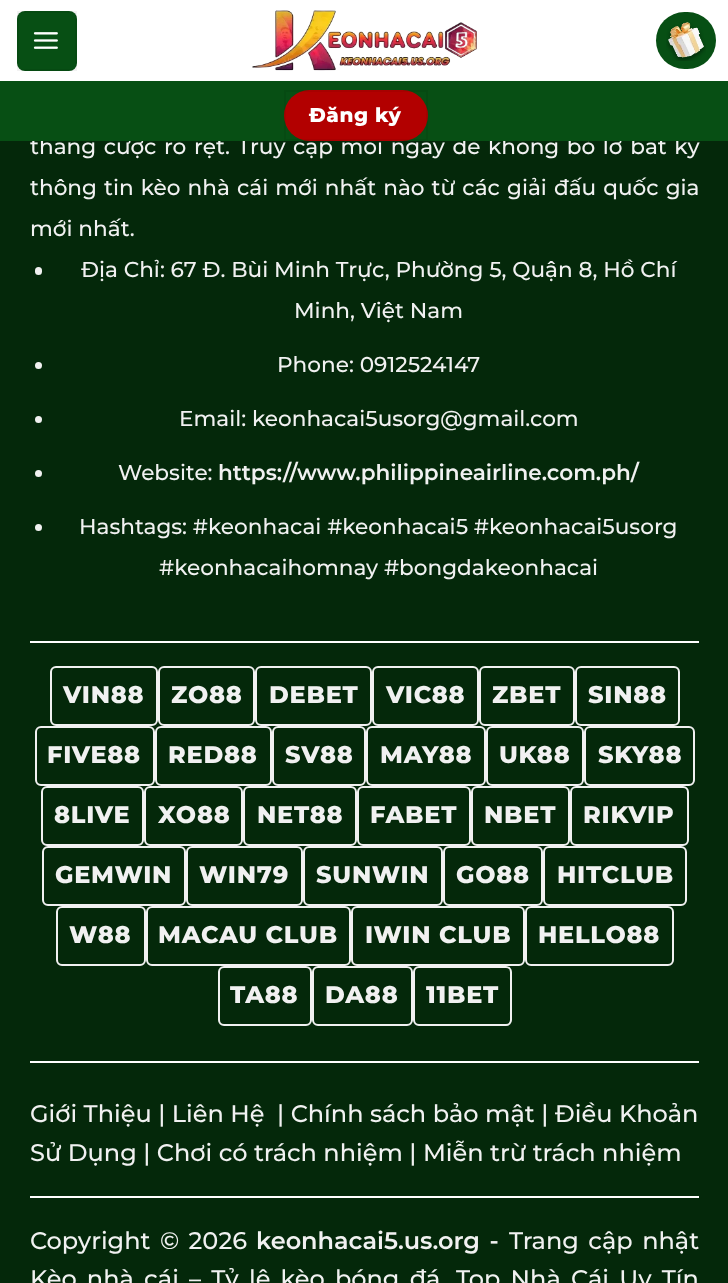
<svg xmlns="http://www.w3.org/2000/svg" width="728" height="1283">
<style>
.a{font:500 21.6px Montserrat;fill:#f1f1f1}
.b{font:800 20px Montserrat;letter-spacing:0.5px;fill:#fff}
.c{font:600 21.6px Montserrat;fill:#f1f1f1}
.d{font:800 24px Montserrat;letter-spacing:0.75px;fill:#f1f1f1}
.e{font:500 24px Montserrat;fill:#f1f1f1}
.f{font:600 24px Montserrat;fill:#f1f1f1}
</style>
<rect width="100%" height="100%" fill="#04280a"/>
<path fill="#fff" d="M0 0h728v81H0z"/>
<rect fill="#074f14" x="17" y="11" width="60" height="60" rx="8"/>
<path fill="none" stroke="#0000000d" stroke-width="2" d="M18 12h58v58H18z"/>
<image href="1.png" x="33" y="32" width="25" height="17"/>
<image href="2.png" x="252" y="10" width="225" height="61"/>
<rect fill="#074f14" x="656" y="12" width="60" height="57" rx="28.5"/>
<image href="3.png" x="666" y="22" width="40" height="39"/>
<rect fill="#f1f1f1" x="35" y="267" width="7" height="8" rx="3.5"/>
<circle fill="#f1f1f1" cx="38.5" cy="365.5" r="3.5"/>
<circle fill="#f1f1f1" cx="38.5" cy="419.5" r="3.5"/>
<circle fill="#f1f1f1" cx="38.5" cy="473.5" r="3.5"/>
<circle fill="#f1f1f1" cx="38.5" cy="527.5" r="3.5"/>
<path fill="#fff" d="M30 641h669v2H30z"/>
<rect fill="none" stroke="#f1f1f1" stroke-width="2" x="51" y="667" width="106" height="58" rx="5"/>
<rect fill="none" stroke="#f1f1f1" stroke-width="2" x="159" y="667" width="95" height="58" rx="5"/>
<rect fill="none" stroke="#f1f1f1" stroke-width="2" x="256" y="667" width="115" height="58" rx="5"/>
<rect fill="none" stroke="#f1f1f1" stroke-width="2" x="373" y="667" width="105" height="58" rx="5"/>
<rect fill="none" stroke="#f1f1f1" stroke-width="2" x="480" y="667" width="94" height="58" rx="5"/>
<rect fill="none" stroke="#f1f1f1" stroke-width="2" x="576" y="667" width="103" height="58" rx="5"/>
<rect fill="none" stroke="#f1f1f1" stroke-width="2" x="36" y="727" width="118" height="58" rx="5"/>
<rect fill="none" stroke="#f1f1f1" stroke-width="2" x="156" y="727" width="115" height="58" rx="5"/>
<rect fill="none" stroke="#f1f1f1" stroke-width="2" x="273" y="727" width="92" height="58" rx="5"/>
<rect fill="none" stroke="#f1f1f1" stroke-width="2" x="367" y="727" width="118" height="58" rx="5"/>
<rect fill="none" stroke="#f1f1f1" stroke-width="2" x="487" y="727" width="96" height="58" rx="5"/>
<rect fill="none" stroke="#f1f1f1" stroke-width="2" x="585" y="727" width="109" height="58" rx="5"/>
<rect fill="none" stroke="#f1f1f1" stroke-width="2" x="42" y="787" width="101" height="58" rx="5"/>
<rect fill="none" stroke="#f1f1f1" stroke-width="2" x="145" y="787" width="97" height="58" rx="5"/>
<rect fill="none" stroke="#f1f1f1" stroke-width="2" x="244" y="787" width="112" height="58" rx="5"/>
<rect fill="none" stroke="#f1f1f1" stroke-width="2" x="358" y="787" width="112" height="58" rx="5"/>
<rect fill="none" stroke="#f1f1f1" stroke-width="2" x="472" y="787" width="97" height="58" rx="5"/>
<rect fill="none" stroke="#f1f1f1" stroke-width="2" x="571" y="787" width="117" height="58" rx="5"/>
<rect fill="none" stroke="#f1f1f1" stroke-width="2" x="43" y="847" width="142" height="58" rx="5"/>
<rect fill="none" stroke="#f1f1f1" stroke-width="2" x="187" y="847" width="115" height="58" rx="5"/>
<rect fill="none" stroke="#f1f1f1" stroke-width="2" x="304" y="847" width="138" height="58" rx="5"/>
<rect fill="none" stroke="#f1f1f1" stroke-width="2" x="444" y="847" width="98" height="58" rx="5"/>
<rect fill="none" stroke="#f1f1f1" stroke-width="2" x="544" y="847" width="142" height="58" rx="5"/>
<rect fill="none" stroke="#f1f1f1" stroke-width="2" x="57" y="907" width="88" height="58" rx="5"/>
<rect fill="none" stroke="#f1f1f1" stroke-width="2" x="147" y="907" width="203" height="58" rx="5"/>
<rect fill="none" stroke="#f1f1f1" stroke-width="2" x="352" y="907" width="172" height="58" rx="5"/>
<rect fill="none" stroke="#f1f1f1" stroke-width="2" x="526" y="907" width="147" height="58" rx="5"/>
<rect fill="none" stroke="#f1f1f1" stroke-width="2" x="219" y="967" width="92" height="58" rx="5"/>
<rect fill="none" stroke="#f1f1f1" stroke-width="2" x="313" y="967" width="99" height="58" rx="5"/>
<rect fill="none" stroke="#f1f1f1" stroke-width="2" x="414" y="967" width="97" height="58" rx="5"/>
<path fill="#fff" d="M30 1061h669v2H30z"/>
<path fill="#fff" d="M30 1196h669v2H30z"/>
<text class="a" x="30" y="154" word-spacing="1.75">thắng cược rõ rệt. Truy cập mỗi ngày để không bỏ lỡ bất kỳ</text>
<path fill="#074f14" d="M0 81h728v60H0z"/>
<rect fill="#b20000" x="284" y="90" width="144" height="51" rx="25.5"/>
<path fill="none" stroke="#0000000d" stroke-width="2" d="M285 91h142v49H285z"/>
<text class="b" x="309" y="122">Đăng ký</text>
<text class="a" x="30" y="195" word-spacing="1.25">thông tin kèo nhà cái mới nhất nào từ các giải đấu quốc gia</text>
<text class="a" x="30" y="236">mới nhất.</text>
<text class="a" x="81" y="277">Địa Chỉ: 67 Đ. Bùi Minh Trực, Phường 5, Quận 8, Hồ Chí</text>
<text class="a" x="294" y="318">Minh, Việt Nam</text>
<text class="a" x="277" y="372">Phone: 0912524147</text>
<text class="a" x="179" y="426">Email: keonhacai5usorg@gmail.com</text>
<text class="a" x="118" y="480">Website:</text>
<text class="c" x="218" y="480">https://www.philippineairline.com.ph/</text>
<text class="a" x="79" y="534">Hashtags: #keonhacai #keonhacai5 #keonhacai5usorg</text>
<text class="a" x="159" y="575">#keonhacaihomnay #bongdakeonhacai</text>
<text class="d" x="63" y="703">VIN88</text>
<text class="d" x="171" y="703">ZO88</text>
<text class="d" x="269" y="703">DEBET</text>
<text class="d" x="386" y="703">VIC88</text>
<text class="d" x="492" y="703">ZBET</text>
<text class="d" x="588" y="703">SIN88</text>
<text class="d" x="47" y="763">FIVE88</text>
<text class="d" x="168" y="763">RED88</text>
<text class="d" x="285" y="763">SV88</text>
<text class="d" x="380" y="763">MAY88</text>
<text class="d" x="499" y="763">UK88</text>
<text class="d" x="598" y="763">SKY88</text>
<text class="d" x="54" y="823">8LIVE</text>
<text class="d" x="158" y="823">XO88</text>
<text class="d" x="257" y="823">NET88</text>
<text class="d" x="370" y="823">FABET</text>
<text class="d" x="484" y="823">NBET</text>
<text class="d" x="583" y="823">RIKVIP</text>
<text class="d" x="55" y="883">GEMWIN</text>
<text class="d" x="199" y="883">WIN79</text>
<text class="d" x="316" y="883">SUNWIN</text>
<text class="d" x="456" y="883">GO88</text>
<text class="d" x="557" y="883">HITCLUB</text>
<text class="d" x="69" y="943">W88</text>
<text class="d" x="158" y="943">MACAU CLUB</text>
<text class="d" x="365" y="943">IWIN CLUB</text>
<text class="d" x="538" y="943">HELLO88</text>
<text class="d" x="230" y="1003">TA88</text>
<text class="d" x="325" y="1003">DA88</text>
<text class="d" x="426" y="1003">11BET</text>
<text class="e" x="30" y="1122">Giới Thiệu | Liên Hệ</text>
<text class="e" x="277" y="1122">| Chính sách bảo mật | Điều Khoản</text>
<text class="e" x="30" y="1161">Sử Dụng | Chơi có trách nhiệm | Miễn trừ trách nhiệm</text>
<text class="e" x="30" y="1249" word-spacing="3">Copyright © 2026</text>
<text class="f" x="256" y="1249" word-spacing="3">keonhacai5.us.org -</text>
<text class="e" x="509" y="1249" word-spacing="3">Trang cập nhật</text>
<text class="e" x="30" y="1287" word-spacing="3.75">Kèo nhà cái – Tỷ lệ kèo bóng đá, Top Nhà Cái Uy Tín</text>
</svg>
